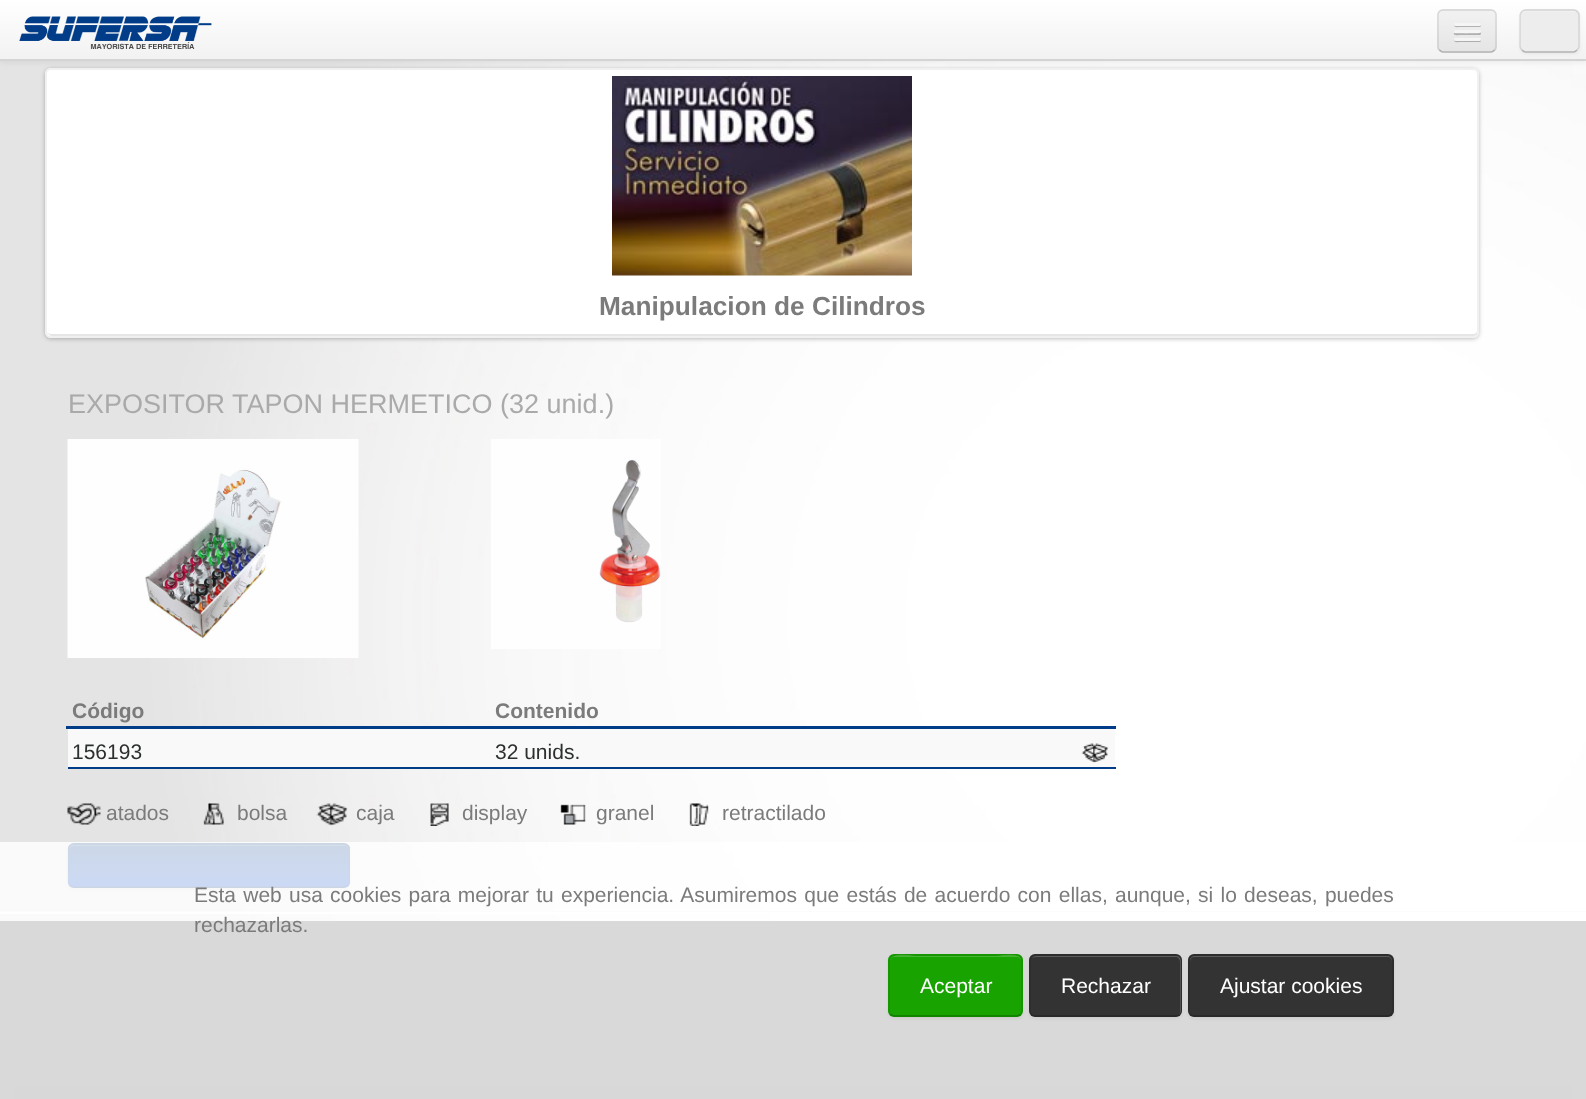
<svg xmlns="http://www.w3.org/2000/svg" width="1586" height="1099">
<style>
.a{font:bold 26.25px Liberation Sans;fill:#7b7b7b}
.b{font:27px Liberation Sans;fill:#aaa}
.c{font:bold 21px Liberation Sans;fill:#7b7b7b}
.d{font:21px Liberation Sans;fill:#2c2f2f}
.e{font:21px Liberation Sans;fill:#7b7b7b}
.f{font:21px Liberation Sans;fill:#fff}
</style>
<defs>
<linearGradient id="g1" gradientUnits="userSpaceOnUse" x1="794" y1="0" x2="794" y2="59"><stop offset="0" stop-color="#fff"/><stop offset="1" stop-color="#f2f2f2"/></linearGradient>
<clipPath id="clip1"><rect x="1437" y="9" width="60" height="44" rx="6"/></clipPath>
<linearGradient id="g2" gradientUnits="userSpaceOnUse" x1="1467" y1="10" x2="1467" y2="51"><stop offset="0" stop-color="#f2f2f2"/><stop offset="1" stop-color="#e5e5e5"/></linearGradient>
<clipPath id="clip2"><rect x="68" y="843" width="282" height="45" rx="6"/></clipPath>
<linearGradient id="g3" gradientUnits="userSpaceOnUse" x1="209" y1="845" x2="209" y2="887"><stop offset="0" stop-color="#003c88"/><stop offset="1" stop-color="#04c"/></linearGradient>
</defs>
<rect width="100%" height="100%" fill="#fff"/>
<image href="1.png" x="0" y="61" width="1586" height="860"/>
<rect fill="#00000040" filter="blur(2px)" x="45" y="69" width="1434" height="270" rx="6"/>
<rect fill="#fff" x="45" y="68" width="1434" height="270" rx="6"/>
<path fill="#e6e6e6" d="M47 332c1 2 3 4 5 4h1421c3 0 5-2 5-5v-1c0 2-3 4-5 4h-1422c-1 0-3-1-4-2z"/>
<rect fill="none" stroke="#f0f0f0" stroke-width="2" x="46" y="69" width="1432" height="268" rx="5"/>
<path fill="#00000012" filter="blur(3px)" d="M0 2h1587v60H0z"/>
<path fill="url(#g1)" d="M0 0h1586v59H0z"/>
<path fill="#d4d4d4" d="M0 59h1586v2H0z"/>
<rect fill="#ededed" x="1437" y="9" width="60" height="44" rx="6"/>
<g clip-path="url(#clip1)">
<path fill="url(#g2)" d="M1437 11h60v40H1437z"/>
</g>
<path fill="none" stroke="#00000040" stroke-width="1.5" d="M1494.5 50c-1 1-2 2-3.5 2h-48c-1.5 0-2.5-1-3.5-2"/>
<path fill="none" stroke="#0000001a" stroke-width="1.5" d="M1439.5 50c-1-1-1.5-2-1.5-3.5v-31.5c0-1.5 .5-2.5 1.5-3.5c1-1 2-1.5 3.5-1.5h48c1.5 0 2.5 .5 3.5 1.5c1 1 1.5 2 1.5 3.5v31.5c0 1.5-.5 2.5-1.5 3.5"/>
<path fill="#b2b2b2" d="M1454 25c-.5 3 5 2 5.5 2h20c1.5 0 2-2 1-2.5l-1 1c-1.5 .5-25 0-25.5-.5z"/>
<rect fill="#f5f5f5" x="1454" y="23" width="27" height="3" rx="1.5"/>
<path fill="#b0b0b0" d="M1454 33c-1.5 3 5.5 2 5.5 2h20.5c1-.5 1.5-2 .5-3l-1.5 1c-2 .5-24 .5-25 0z"/>
<rect fill="#f5f5f5" x="1454" y="30" width="27" height="3" rx="1.5"/>
<path fill="#aeaeae" d="M1454 40c-.5 3 5 2 5.5 2h20c1.5 0 2-2 1-2.5l-1 1c-1.5 .5-25 0-25.5-.5z"/>
<rect fill="#f5f5f5" x="1454" y="38" width="27" height="3" rx="1.5"/>
<rect fill="#0000000d" filter="blur(1.5px)" x="1520" y="11" width="60" height="43" rx="6"/>
<rect fill="#ededed" x="1520" y="9" width="60" height="44" rx="6"/>
<path fill="#f1f1f1" d="M1526 12h48c2 0 4 2 4 4c0-3-2-5-5-5h-47c-3 0-5 2-5 5c0-2 2-4 5-4z"/>
<path fill="none" stroke="#b2b2b2" stroke-width="1.5" d="M1577 50c-1 1-2 2-3.5 2h-48c-1.5 0-2.5-1-3.5-2"/>
<path fill="none" stroke="#0000001a" stroke-width="1.5" d="M1522 50c-1-1-2-2-2-3.5v-31.5c0-1.5 1-2.5 2-3.5c1-1 2-1.5 3.5-1.5h48c1.5 0 2.5 .5 3.5 1.5c1 1 2 2 2 3.5v31.5c0 1.5-1 2.5-2 3.5"/>
<image href="2.png" x="19" y="16" width="193" height="34"/>
<image href="3.png" x="612" y="76" width="300" height="200"/>
<image href="4.png" x="67" y="439" width="292" height="219"/>
<image href="5.png" x="491" y="439" width="170" height="210"/>
<path fill="#003c88" d="M66 726h1050v3H66z"/>
<path fill="#003c88" d="M68 767h1048v2H68z"/>
<path fill="#f9f9f9" d="M68 729h1047v38H68z"/>
<image href="6.png" x="1081" y="743" width="28" height="20"/>
<image href="7.png" x="67" y="803" width="34" height="22"/>
<image href="8.png" x="203" y="803" width="21" height="22"/>
<image href="9.png" x="316" y="803" width="32" height="23"/>
<image href="10.png" x="430" y="803" width="19" height="23"/>
<image href="11.png" x="560" y="804" width="26" height="21"/>
<image href="12.png" x="689" y="803" width="20" height="23"/>
<rect fill="#0000000d" filter="blur(1.5px)" x="68" y="845" width="282" height="45" rx="6"/>
<rect fill="#003c88" x="68" y="843" width="282" height="45" rx="6"/>
<g clip-path="url(#clip2)">
<path fill="url(#g3)" d="M68 845h282v42H68z"/>
</g>
<path fill="#3363a1" d="M74 846h270c2 0 4 2 4 4c0-3-2-5-5-5h-269c-3 0-5 2-5 5c0-2 2-4 5-4z"/>
<path fill="none" stroke="#00000040" stroke-width="1.5" d="M347 885.5l-3 1.5h-270.5c-1.5 0-2.5-.5-3.5-1.5"/>
<path fill="none" stroke="#0000001a" stroke-width="1.5" d="M70 885.5c-1-1-2-2-2-3.5v-33c0-1.5 1-2.5 2-3.5c1-1 2-1.5 3.5-1.5h270c1.5 0 2.5 .5 3.5 1.5c1 1 2 2 2 3.5v33c0 1.5-1 2.5-2 3.5"/>
<path fill="#eee" d="M0 911h1586v1H0z"/>
<path fill="#fff" d="M0 912h829v2H0z"/>
<path fill="#414042" d="M0 921h1586v178H0z"/>
<path fill="#3d3d3d" d="M15 1086h1557v13H15z"/>
<path fill="#ffffffcc" d="M0 842h1586v257H0z"/>
<rect fill="#0000000d" filter="blur(1.5px)" x="888" y="956" width="135" height="63" rx="6"/>
<rect fill="#18a300" x="888" y="954" width="135" height="63" rx="6"/>
<path fill="#46b533" d="M894 957h123c2 0 5 2 5 5c0-11-22-6-25-6h-82c-3 0-25-5-25 6c0-3 2-5 4-5z"/>
<path fill="none" stroke="#00000040" stroke-width="1.5" d="M1020.5 1014.5l-3 1.5h-124l-3-1.5"/>
<path fill="none" stroke="#0000001a" stroke-width="1.5" d="M890.5 1014.5c-1-1-1.5-2-1.5-3.5v-51c0-1.5 .5-2.5 1.5-3.5c1-1 2-1.5 3.5-1.5h123c1.5 0 2.5 .5 3.5 1.5c1 1 1.5 2 1.5 3.5v51c0 1.5-.5 2.5-1.5 3.5"/>
<rect fill="#0000000d" filter="blur(1.5px)" x="1029" y="956" width="153" height="63" rx="6"/>
<rect fill="#333" x="1029" y="954" width="153" height="63" rx="6"/>
<path fill="#5c5c5c" d="M1035 957h141c2 0 4 2 4 5v50l-1 3c1-1 2-3 2-4v-50c0-3-2-5-5-5h-140c-2 0-3 1-4 2z"/>
<path fill="none" stroke="#00000040" stroke-width="1.5" d="M1179.5 1014.5c-1 1-2 1.5-3.5 1.5h-141c-1.5 0-2.5-.5-3.5-1.5"/>
<path fill="none" stroke="#00000026" stroke-width="1.5" d="M1031.5 1014.5c-1-1-1.5-2-1.5-3.5v-51c0-1.5 .5-2.5 1.5-3.5c1-1 2-1.5 3.5-1.5h141c1.5 0 2.5 .5 3.5 1.5c1 1 1.5 2 1.5 3.5v51c0 1.5-.5 2.5-1.5 3.5"/>
<rect fill="#0000000d" filter="blur(1.5px)" x="1188" y="956" width="206" height="63" rx="6"/>
<rect fill="#333" x="1188" y="954" width="206" height="63" rx="6"/>
<path fill="#5c5c5c" d="M1194 957h194c2 0 4 2 4 5v-1c0-3-2-5-5-5h-192c-3 0-5 2-5 5v1c0-3 2-5 4-5z"/>
<path fill="none" stroke="#00000040" stroke-width="1.5" d="M1391 1014.5c-1 1-2 1.5-3.5 1.5h-193.5c-1.5 0-2.5-.5-3.5-1.5"/>
<path fill="none" stroke="#00000026" stroke-width="1.5" d="M1190.5 1014.5c-1-1-1.5-2-1.5-3.5v-51c0-1.5 .5-2.5 1.5-3.5c1-1 2-1.5 3.5-1.5h193.5c1.5 0 2.5 .5 3.5 1.5c1 1 2 2 2 3.5v51c0 1.5-1 2.5-2 3.5"/>
<text class="a" x="599" y="315">Manipulacion de Cilindros</text>
<text class="b" x="68" y="413">EXPOSITOR TAPON HERMETICO (32 unid.)</text>
<text class="c" x="72" y="718">Código</text>
<text class="c" x="495" y="718">Contenido</text>
<text class="d" x="72" y="759">156193</text>
<text class="d" x="495" y="759">32 unids.</text>
<text class="e" x="106" y="820">atados</text>
<text class="e" x="237" y="820">bolsa</text>
<text class="e" x="356" y="820">caja</text>
<text class="e" x="462" y="820">display</text>
<text class="e" x="596" y="820">granel</text>
<text class="e" x="722" y="820">retractilado</text>
<text class="e" x="194" y="902" word-spacing="1.4">Esta web usa cookies para mejorar tu experiencia. Asumiremos que estás de acuerdo con ellas, aunque, si lo deseas, puedes</text>
<text class="e" x="194" y="932">rechazarlas.</text>
<text class="f" x="920" y="993">Aceptar</text>
<text class="f" x="1061" y="993">Rechazar</text>
<text class="f" x="1220" y="993">Ajustar cookies</text>
</svg>
